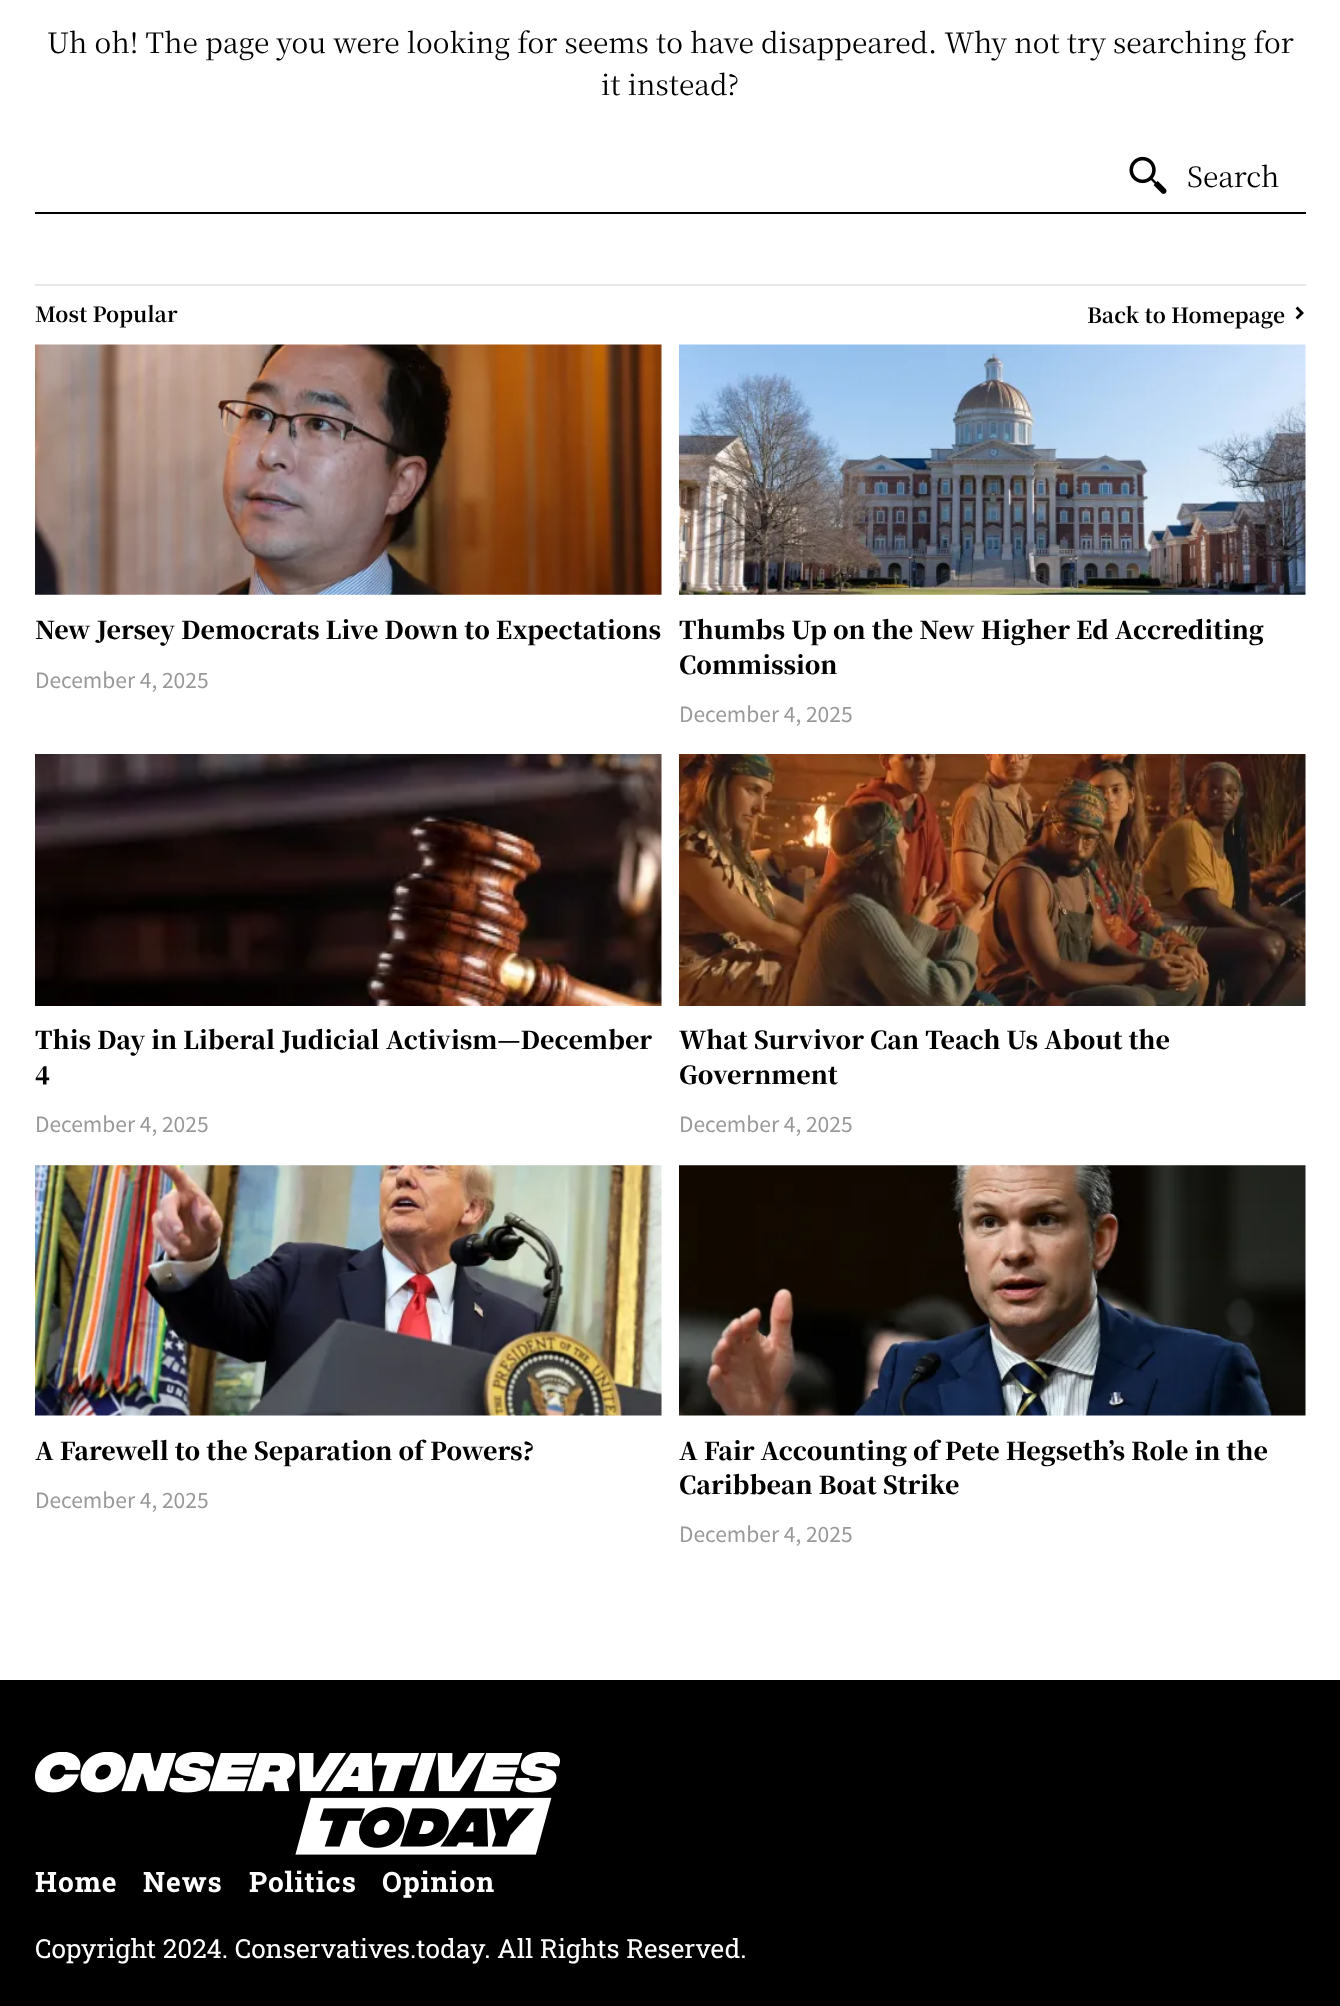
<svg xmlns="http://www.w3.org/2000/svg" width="1340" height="2006">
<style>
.a{font:28px Noto Serif JP;fill:#000}
.b{font:bold 21px Noto Serif JP;fill:#000}
.c{font:900 24.5px Noto Serif JP;fill:#000}
.d{font:100 21px Noto Sans JP;fill:#999}
.e{font:bold 28px Roboto Slab;letter-spacing:1px;fill:#fff}
.f{font:26.25px Roboto Slab;fill:#fff}
</style>
<rect width="100%" height="100%" fill="#fff"/>
<image href="1.png" x="1129" y="156" width="38" height="38"/>
<path fill="#000" d="M35 212h1271v2H35z"/>
<path fill="#e8e8e8" d="M35 284h1271v2H35z"/>
<image href="2.png" x="1295" y="306" width="9" height="14"/>
<image href="3.png" x="35" y="344" width="627" height="251"/>
<image href="4.png" x="679" y="344" width="627" height="251"/>
<image href="5.png" x="35" y="754" width="627" height="252"/>
<image href="6.png" x="679" y="754" width="627" height="252"/>
<image href="7.png" x="35" y="1165" width="627" height="251"/>
<image href="8.png" x="679" y="1165" width="627" height="251"/>
<path fill="#000" d="M0 1680h1340v326H0z"/>
<image href="9.png" x="35" y="1752" width="525" height="103"/>
<text class="a" x="47" y="53">Uh oh! The page you were looking for seems to have disappeared. Why not try searching for</text>
<text class="a" x="601" y="95">it instead?</text>
<text class="a" x="1187" y="187">Search</text>
<text class="b" x="35" y="322">Most Popular</text>
<text class="b" x="1087" y="323">Back to Homepage</text>
<text class="c" x="35" y="639">New Jersey Democrats Live Down to Expectations</text>
<text class="d" x="35" y="688">December 4, 2025</text>
<text class="c" x="679" y="639">Thumbs Up on the New Higher Ed Accrediting</text>
<text class="c" x="679" y="674">Commission</text>
<text class="d" x="679" y="722">December 4, 2025</text>
<text class="c" x="35" y="1049">This Day in Liberal Judicial Activism—December</text>
<text class="c" x="35" y="1084">4</text>
<text class="d" x="35" y="1132">December 4, 2025</text>
<text class="c" x="679" y="1049">What Survivor Can Teach Us About the</text>
<text class="c" x="679" y="1084">Government</text>
<text class="d" x="679" y="1132">December 4, 2025</text>
<text class="c" x="35" y="1460">A Farewell to the Separation of Powers?</text>
<text class="d" x="35" y="1508">December 4, 2025</text>
<text class="c" x="679" y="1460">A Fair Accounting of Pete Hegseth’s Role in the</text>
<text class="c" x="679" y="1494">Caribbean Boat Strike</text>
<text class="d" x="679" y="1542">December 4, 2025</text>
<text class="e" x="35" y="1892">Home</text>
<text class="e" x="143" y="1892">News</text>
<text class="e" x="249" y="1892">Politics</text>
<text class="e" x="382" y="1892">Opinion</text>
<text class="f" x="35" y="1958">Copyright 2024. Conservatives.today. All Rights Reserved.</text>
</svg>
